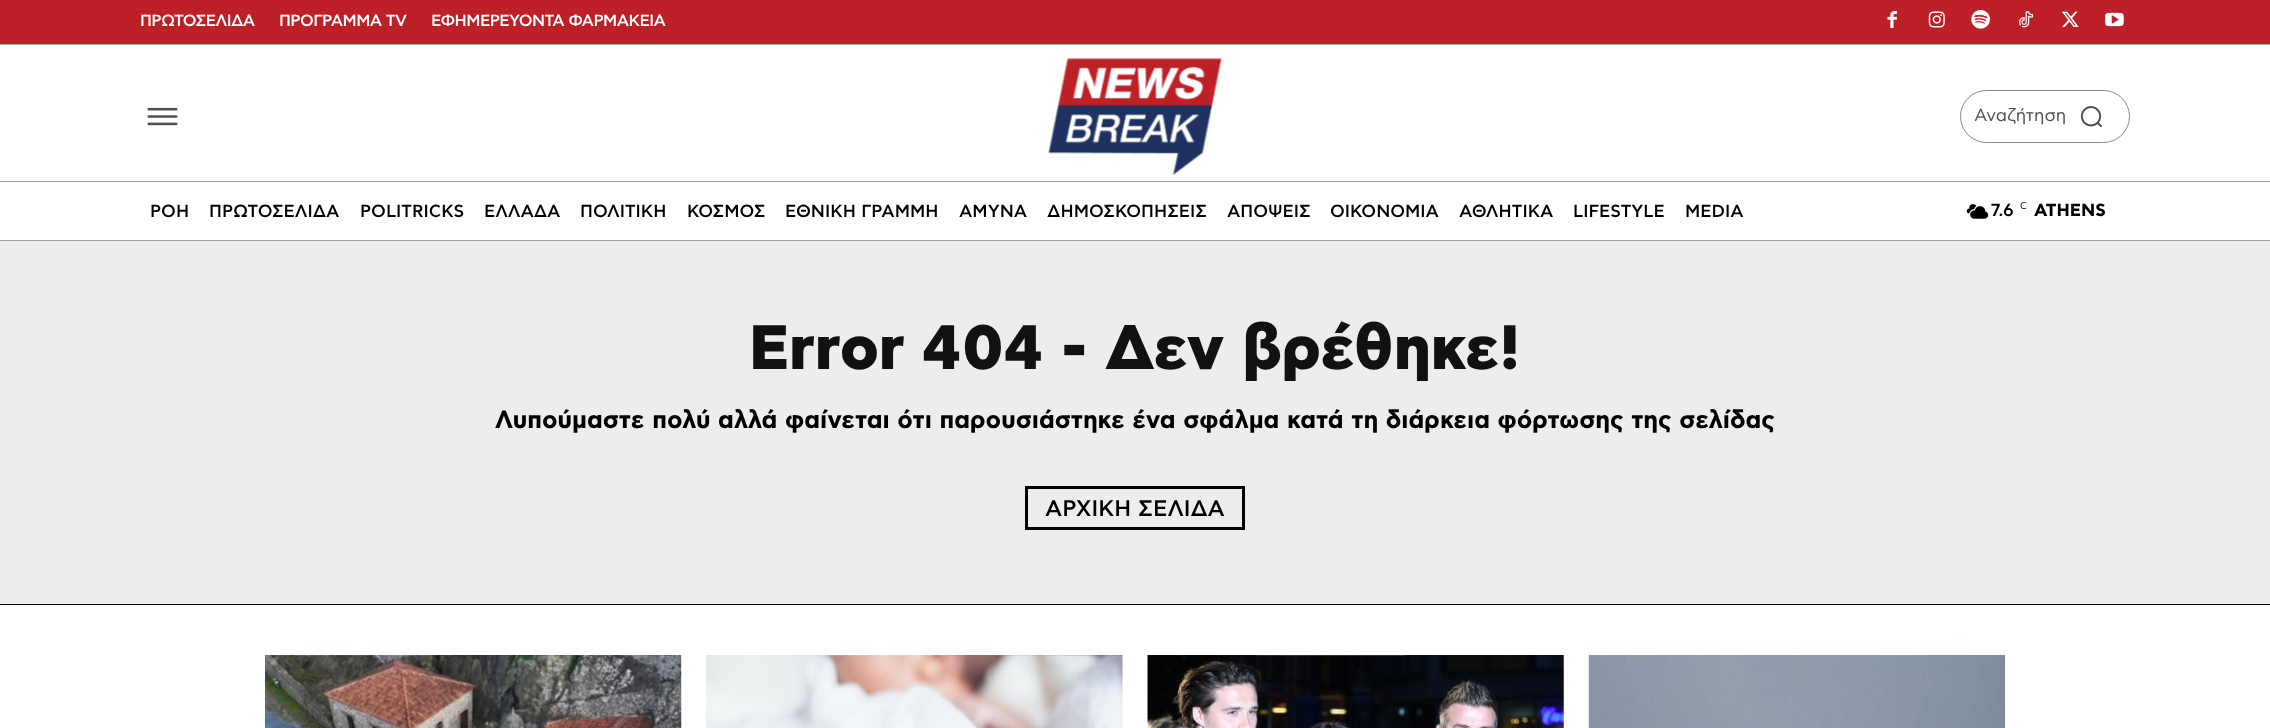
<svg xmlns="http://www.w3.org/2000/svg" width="2270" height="728">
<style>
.a{font:500 16.25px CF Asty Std;letter-spacing:-0.6px;fill:#fff}
.b{font:17.5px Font;fill:#505050}
.c{font:500 17.5px CF Asty Std;fill:#000}
.d{font:10px Font;fill:#000}
.e{font:bold 17.5px Font;fill:#000}
.f{font:800 62.5px CF Asty Std;fill:#111}
.g{font:bold 25px Font;fill:#000}
.h{font:500 22.5px CF Asty Std;fill:#000}
</style>
<rect width="100%" height="100%" fill="#fff"/>
<path fill="#bd2027" d="M0 0h2270v44H0z"/>
<path fill="#afafaf" d="M0 44h2270v1H0z"/>
<image href="1.png" x="1887" y="11" width="10" height="17"/>
<image href="2.png" x="1928" y="11" width="17" height="17"/>
<image href="3.png" x="1971" y="10" width="19" height="19"/>
<image href="4.png" x="2018" y="11" width="16" height="17"/>
<image href="5.png" x="2062" y="11" width="17" height="16"/>
<image href="6.png" x="2105" y="12" width="19" height="15"/>
<image href="7.png" x="147" y="107" width="31" height="19"/>
<image href="8.png" x="1048" y="58" width="174" height="118"/>
<rect fill="none" stroke="#888" x="1960.5" y="90.5" width="169" height="52" rx="26"/>
<image href="9.png" x="2080" y="106" width="22" height="22"/>
<path fill="#a0a0a0" d="M0 181h2270v1H0z"/>
<path fill="#a0a0a0" d="M0 240h2270v1H0z"/>
<image href="10.png" x="1966" y="204" width="23" height="15"/>
<path fill="#ededed" d="M0 241h2270v363H0z"/>
<path fill="#000" d="M0 604h2270v1H0z"/>
<path fill="none" stroke="#000" stroke-width="3" d="M1026.5 487.5h217v41H1026.5z"/>
<image href="11.png" x="265" y="655" width="417" height="73"/>
<image href="12.png" x="706" y="655" width="417" height="73"/>
<image href="13.png" x="1147" y="655" width="417" height="73"/>
<image href="14.png" x="1588" y="655" width="417" height="73"/>
<text class="a" x="140" y="26">ΠΡΩΤΟΣΕΛΙΔΑ</text>
<text class="a" x="279" y="26">ΠΡΟΓΡΑΜΜΑ TV</text>
<text class="a" x="431" y="26">ΕΦΗΜΕΡΕΥΟΝΤΑ ΦΑΡΜΑΚΕΙΑ</text>
<text class="b" x="1974" y="121">Αναζήτηση</text>
<text class="c" x="150" y="217">ΡΟΗ</text>
<text class="c" x="209" y="217">ΠΡΩΤΟΣΕΛΙΔΑ</text>
<text class="c" x="360" y="217">POLITRICKS</text>
<text class="c" x="484" y="217">ΕΛΛΑΔΑ</text>
<text class="c" x="580" y="217">ΠΟΛΙΤΙΚΗ</text>
<text class="c" x="687" y="217">ΚΟΣΜΟΣ</text>
<text class="c" x="785" y="217">ΕΘΝΙΚΗ ΓΡΑΜΜΗ</text>
<text class="c" x="959" y="217">ΑΜΥΝΑ</text>
<text class="c" x="1047" y="217">ΔΗΜΟΣΚΟΠΗΣΕΙΣ</text>
<text class="c" x="1227" y="217">ΑΠΟΨΕΙΣ</text>
<text class="c" x="1330" y="217">ΟΙΚΟΝΟΜΙΑ</text>
<text class="c" x="1459" y="217">ΑΘΛΗΤΙΚΑ</text>
<text class="c" x="1573" y="217">LIFESTYLE</text>
<text class="c" x="1685" y="217">MEDIA</text>
<text class="c" x="1991" y="216">7.6</text>
<text class="d" x="2020" y="209">C</text>
<text class="e" x="2034" y="216">ATHENS</text>
<text class="f" x="749" y="369">Error 404 - Δεν βρέθηκε!</text>
<text class="g" x="495" y="428">Λυπούμαστε πολύ αλλά φαίνεται ότι παρουσιάστηκε ένα σφάλμα κατά τη διάρκεια φόρτωσης της σελίδας</text>
<text class="h" x="1045" y="516">ΑΡΧΙΚΗ ΣΕΛΙΔΑ</text>
</svg>
